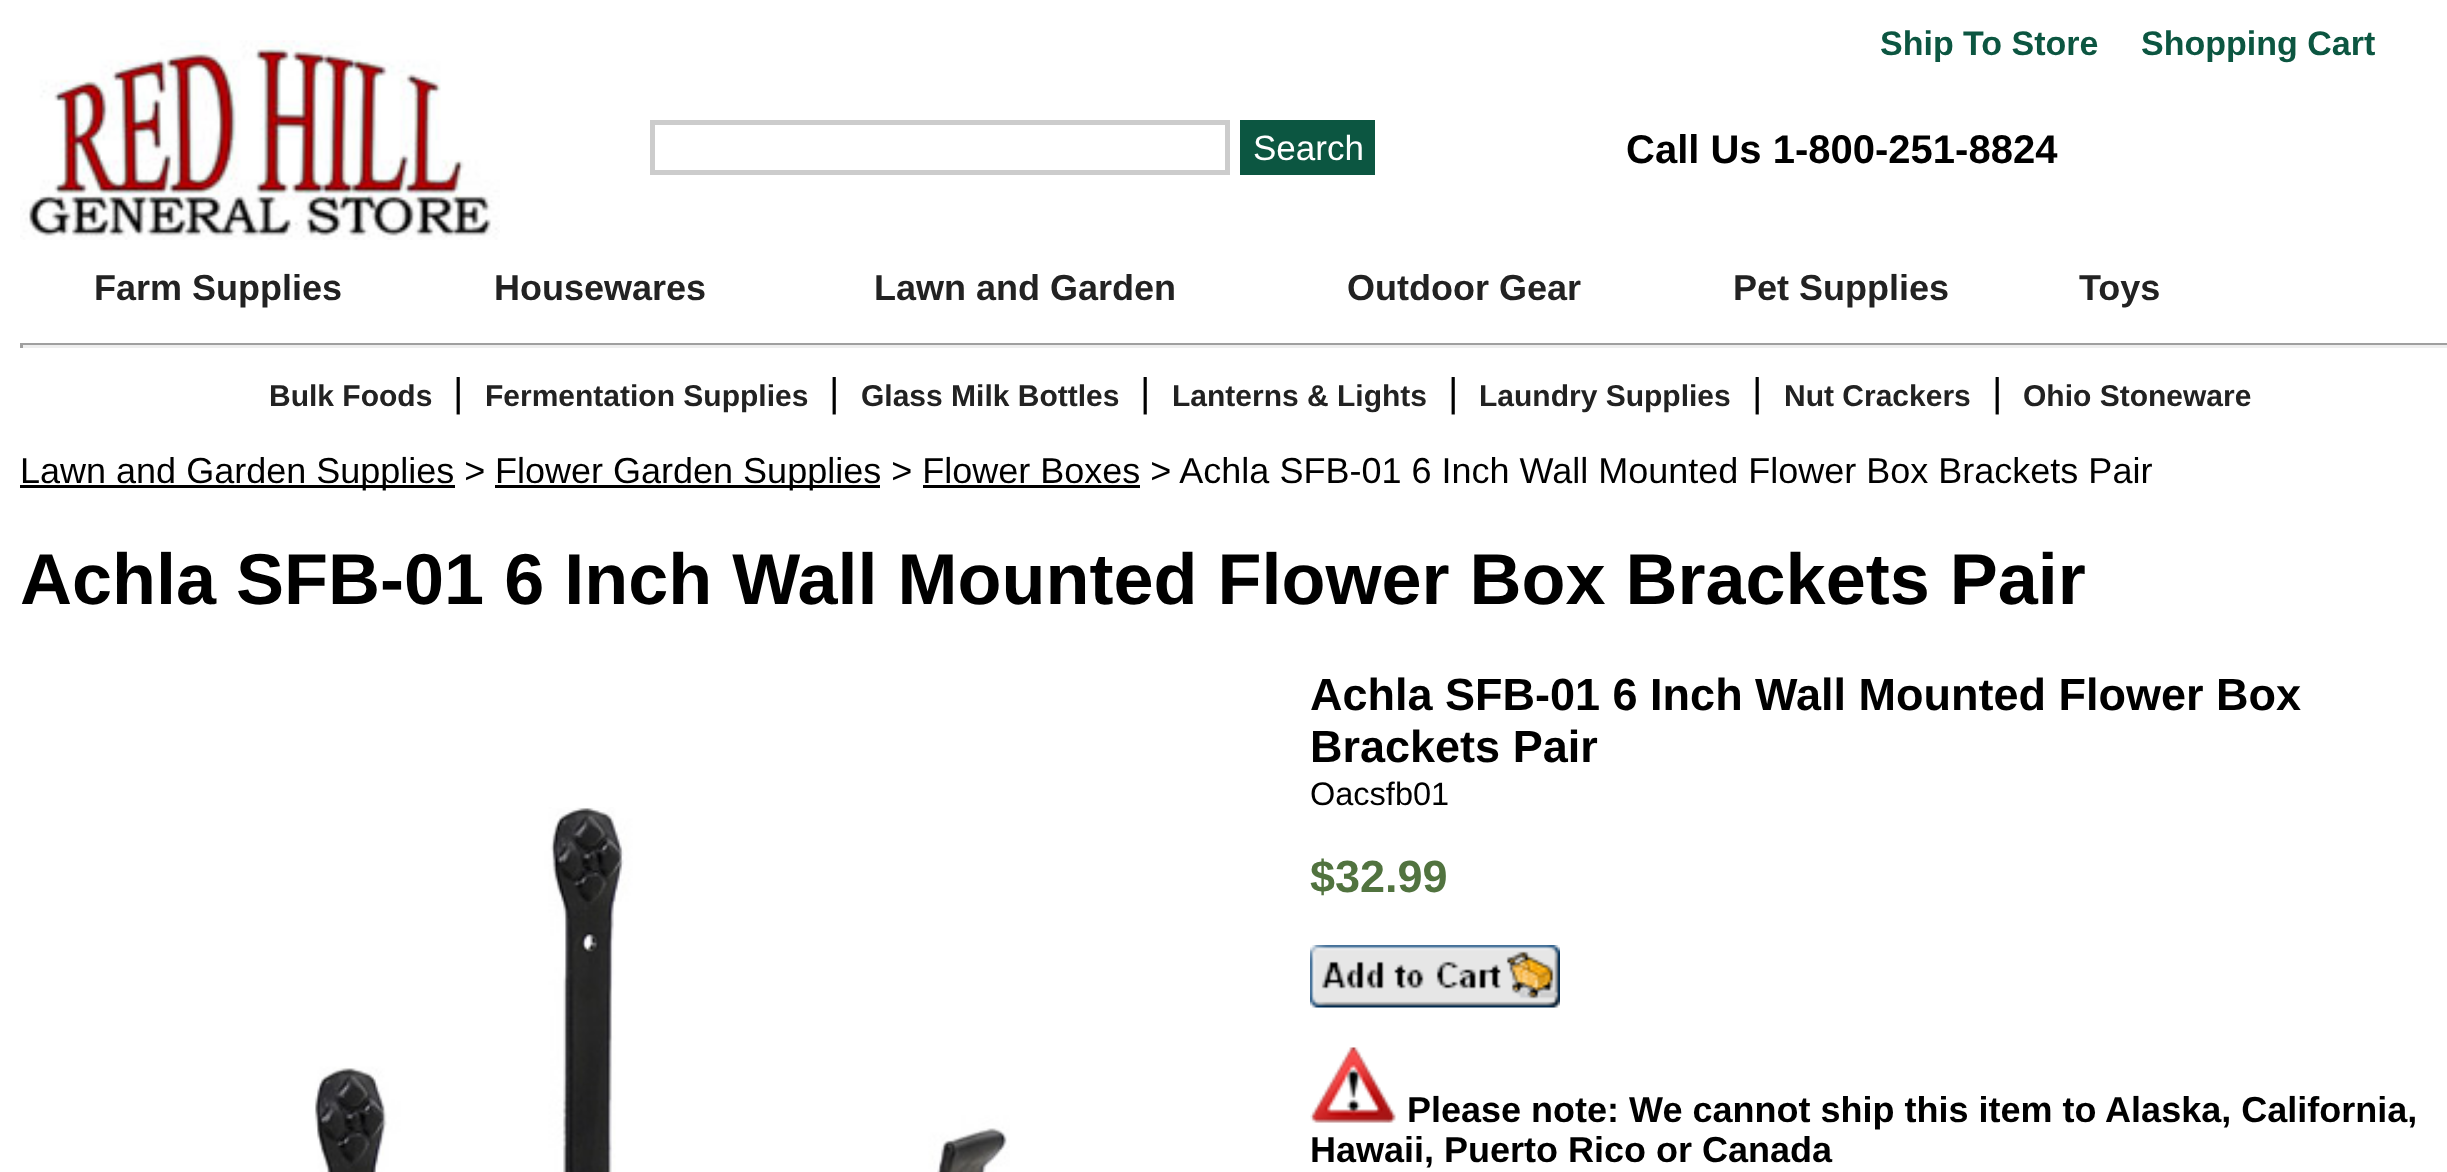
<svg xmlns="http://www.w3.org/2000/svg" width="2447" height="1172">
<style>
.a{font:bold 34px Liberation Sans;fill:#0c5641}
.b{font:35px Liberation Sans;fill:#fff}
.c{font:bold 40px Liberation Sans;fill:#000}
.d{font:bold 36px Liberation Sans;fill:#222}
.e{font:bold 30px Liberation Sans;fill:#222}
.f{font:40px Liberation Sans;fill:#000}
.g{font:36px Liberation Sans;fill:#000}
.h{font:bold 72px Liberation Sans;fill:#000}
.i{font:bold 45px Liberation Sans;fill:#000}
.j{font:32.5px Liberation Sans;fill:#000}
.k{font:bold 45px Liberation Sans;fill:#51733f}
.l{font:bold 36px Liberation Sans;fill:#000}
</style>
<rect width="100%" height="100%" fill="#fff"/>
<image href="1.png" x="20" y="40" width="480" height="200"/>
<path fill="none" stroke="#ccc" stroke-width="5" d="M652.5 122.5h575v50H652.5z"/>
<path fill="#0c5641" d="M1240 120h135v55H1240z"/>
<path fill="#9f9f9f" d="M20 343h2427v2H20z"/>
<path fill="#eee" d="M20 345h2427v3H20z"/>
<path fill="#9f9f9f" d="M20 343h3v5H20z"/>
<path fill="#000" d="M20 485h435v3H20z"/>
<path fill="#000" d="M495 485h385v3H495z"/>
<path fill="#000" d="M923 485h217v3H923z"/>
<image href="2.png" x="314" y="807" width="696" height="365"/>
<image href="3.png" x="1310" y="945" width="250" height="63"/>
<image href="4.png" x="1310" y="1047" width="86" height="76"/>
<text class="a" x="1880" y="55">Ship To Store</text>
<text class="a" x="2141" y="55">Shopping Cart</text>
<text class="b" x="1253" y="160">Search</text>
<text class="c" x="1626" y="163">Call Us 1-800-251-8824</text>
<text class="d" x="94" y="300">Farm Supplies</text>
<text class="d" x="494" y="300">Housewares</text>
<text class="d" x="874" y="300">Lawn and Garden</text>
<text class="d" x="1347" y="300">Outdoor Gear</text>
<text class="d" x="1733" y="300">Pet Supplies</text>
<text class="d" x="2079" y="300">Toys</text>
<text class="e" x="269" y="406">Bulk Foods</text>
<text class="f" x="453" y="406">|</text>
<text class="e" x="485" y="406">Fermentation Supplies</text>
<text class="f" x="829" y="406">|</text>
<text class="e" x="861" y="406">Glass Milk Bottles</text>
<text class="f" x="1140" y="406">|</text>
<text class="e" x="1172" y="406">Lanterns &amp; Lights</text>
<text class="f" x="1448" y="406">|</text>
<text class="e" x="1479" y="406">Laundry Supplies</text>
<text class="f" x="1752" y="406">|</text>
<text class="e" x="1784" y="406">Nut Crackers</text>
<text class="f" x="1992" y="406">|</text>
<text class="e" x="2023" y="406">Ohio Stoneware</text>
<text class="g" x="20" y="483">Lawn and Garden Supplies &gt;</text>
<text class="g" x="495" y="483">Flower Garden Supplies &gt; Flower Boxes &gt; Achla SFB-01 6 Inch Wall Mounted Flower Box Brackets Pair</text>
<text class="h" x="20" y="604">Achla SFB-01 6 Inch Wall Mounted Flower Box Brackets Pair</text>
<text class="i" x="1310" y="710">Achla SFB-01 6 Inch Wall Mounted Flower Box</text>
<text class="i" x="1310" y="762">Brackets Pair</text>
<text class="j" x="1310" y="805">Oacsfb01</text>
<text class="k" x="1310" y="892">$32.99</text>
<text class="l" x="1407" y="1122">Please note: We cannot ship this item to Alaska, California,</text>
<text class="l" x="1310" y="1162">Hawaii, Puerto Rico or Canada</text>
</svg>
